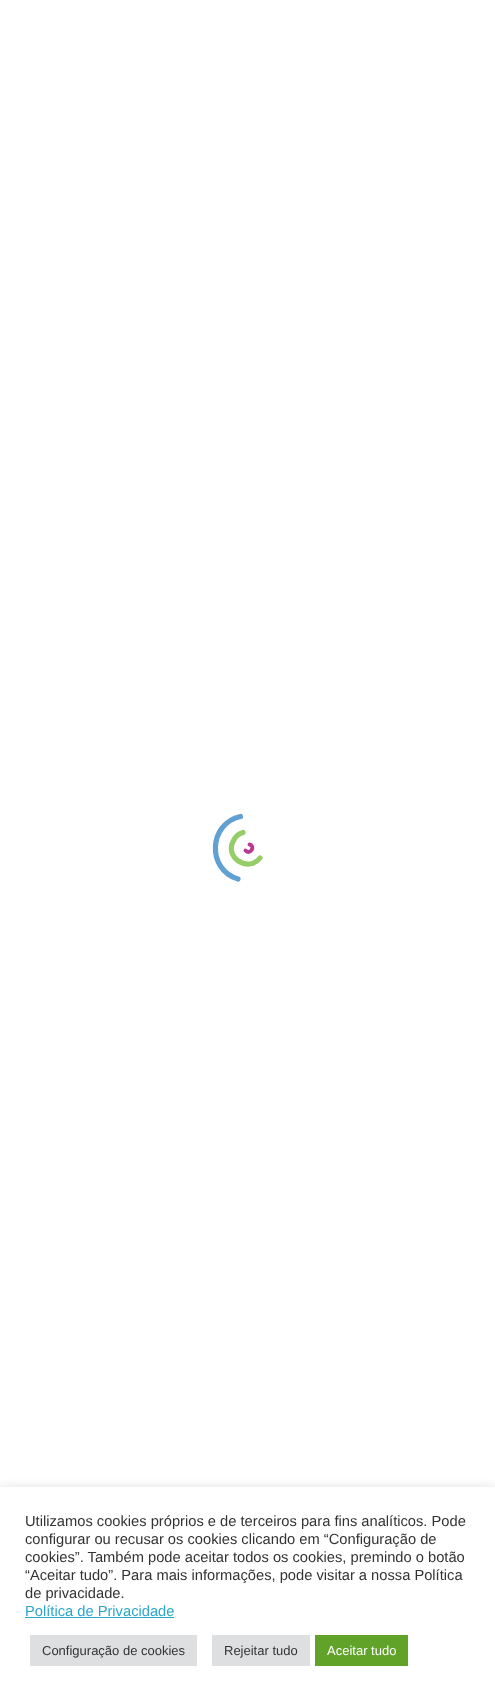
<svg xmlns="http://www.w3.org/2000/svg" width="495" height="1696">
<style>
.a{font:14.7px Liberation Sans;fill:#333}
.b{font:14.7px Liberation Sans;fill:#2ba6cb}
.c{font:13px Liberation Sans;fill:#333}
.d{font:13px Liberation Sans;fill:#fff}
</style>
<defs>
<clipPath id="clip1"><path d="M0 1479h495v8H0z"/></clipPath>
</defs>
<rect width="100%" height="100%" fill="#fff"/>
<path fill="none" stroke="#60a0d3" stroke-width="5.2" stroke-linecap="round" stroke-linejoin="round" d="M238 879c-31.5-9.5-29.5-55.5 2.5-62.5"/>
<path fill="none" stroke="#95cd69" stroke-width="5.2" stroke-linecap="round" stroke-linejoin="round" d="M260 858c-12 15-36-.5-26.5-17.5c2-4 5.5-7 9.5-8"/>
<path fill="none" stroke="#b83894" stroke-width="3.9" stroke-linecap="round" stroke-linejoin="round" d="M245.5 850.5c4.5 5 10.5-4.5 4-6"/>
<g clip-path="url(#clip1)">
<path fill="#acabab4d" filter="blur(5px)" d="M0 1486h495v209H0z"/>
</g>
<path fill="#2ba6cb" d="M25 1617h149v1H25z"/>
<path fill="#dedfe0" d="M30 1635h167v31H30z"/>
<path fill="#dedfe0" d="M212 1635h98v31H212z"/>
<path fill="#61a229" d="M315 1635h93v31H315z"/>
<text class="a" x="25" y="1526">Utilizamos cookies próprios e de terceiros para fins analíticos. Pode</text>
<text class="a" x="25" y="1544">configurar ou recusar os cookies clicando em “Configuração de</text>
<text class="a" x="25" y="1562">cookies”. Também pode aceitar todos os cookies, premindo o botão</text>
<text class="a" x="25" y="1580">“Aceitar tudo”. Para mais informações, pode visitar a nossa Política</text>
<text class="a" x="25" y="1598">de privacidade.</text>
<text class="b" x="25" y="1616">Política de Privacidade</text>
<text class="c" x="42" y="1655">Configuração de cookies</text>
<text class="c" x="224" y="1655">Rejeitar tudo</text>
<text class="d" x="327" y="1655">Aceitar tudo</text>
</svg>
